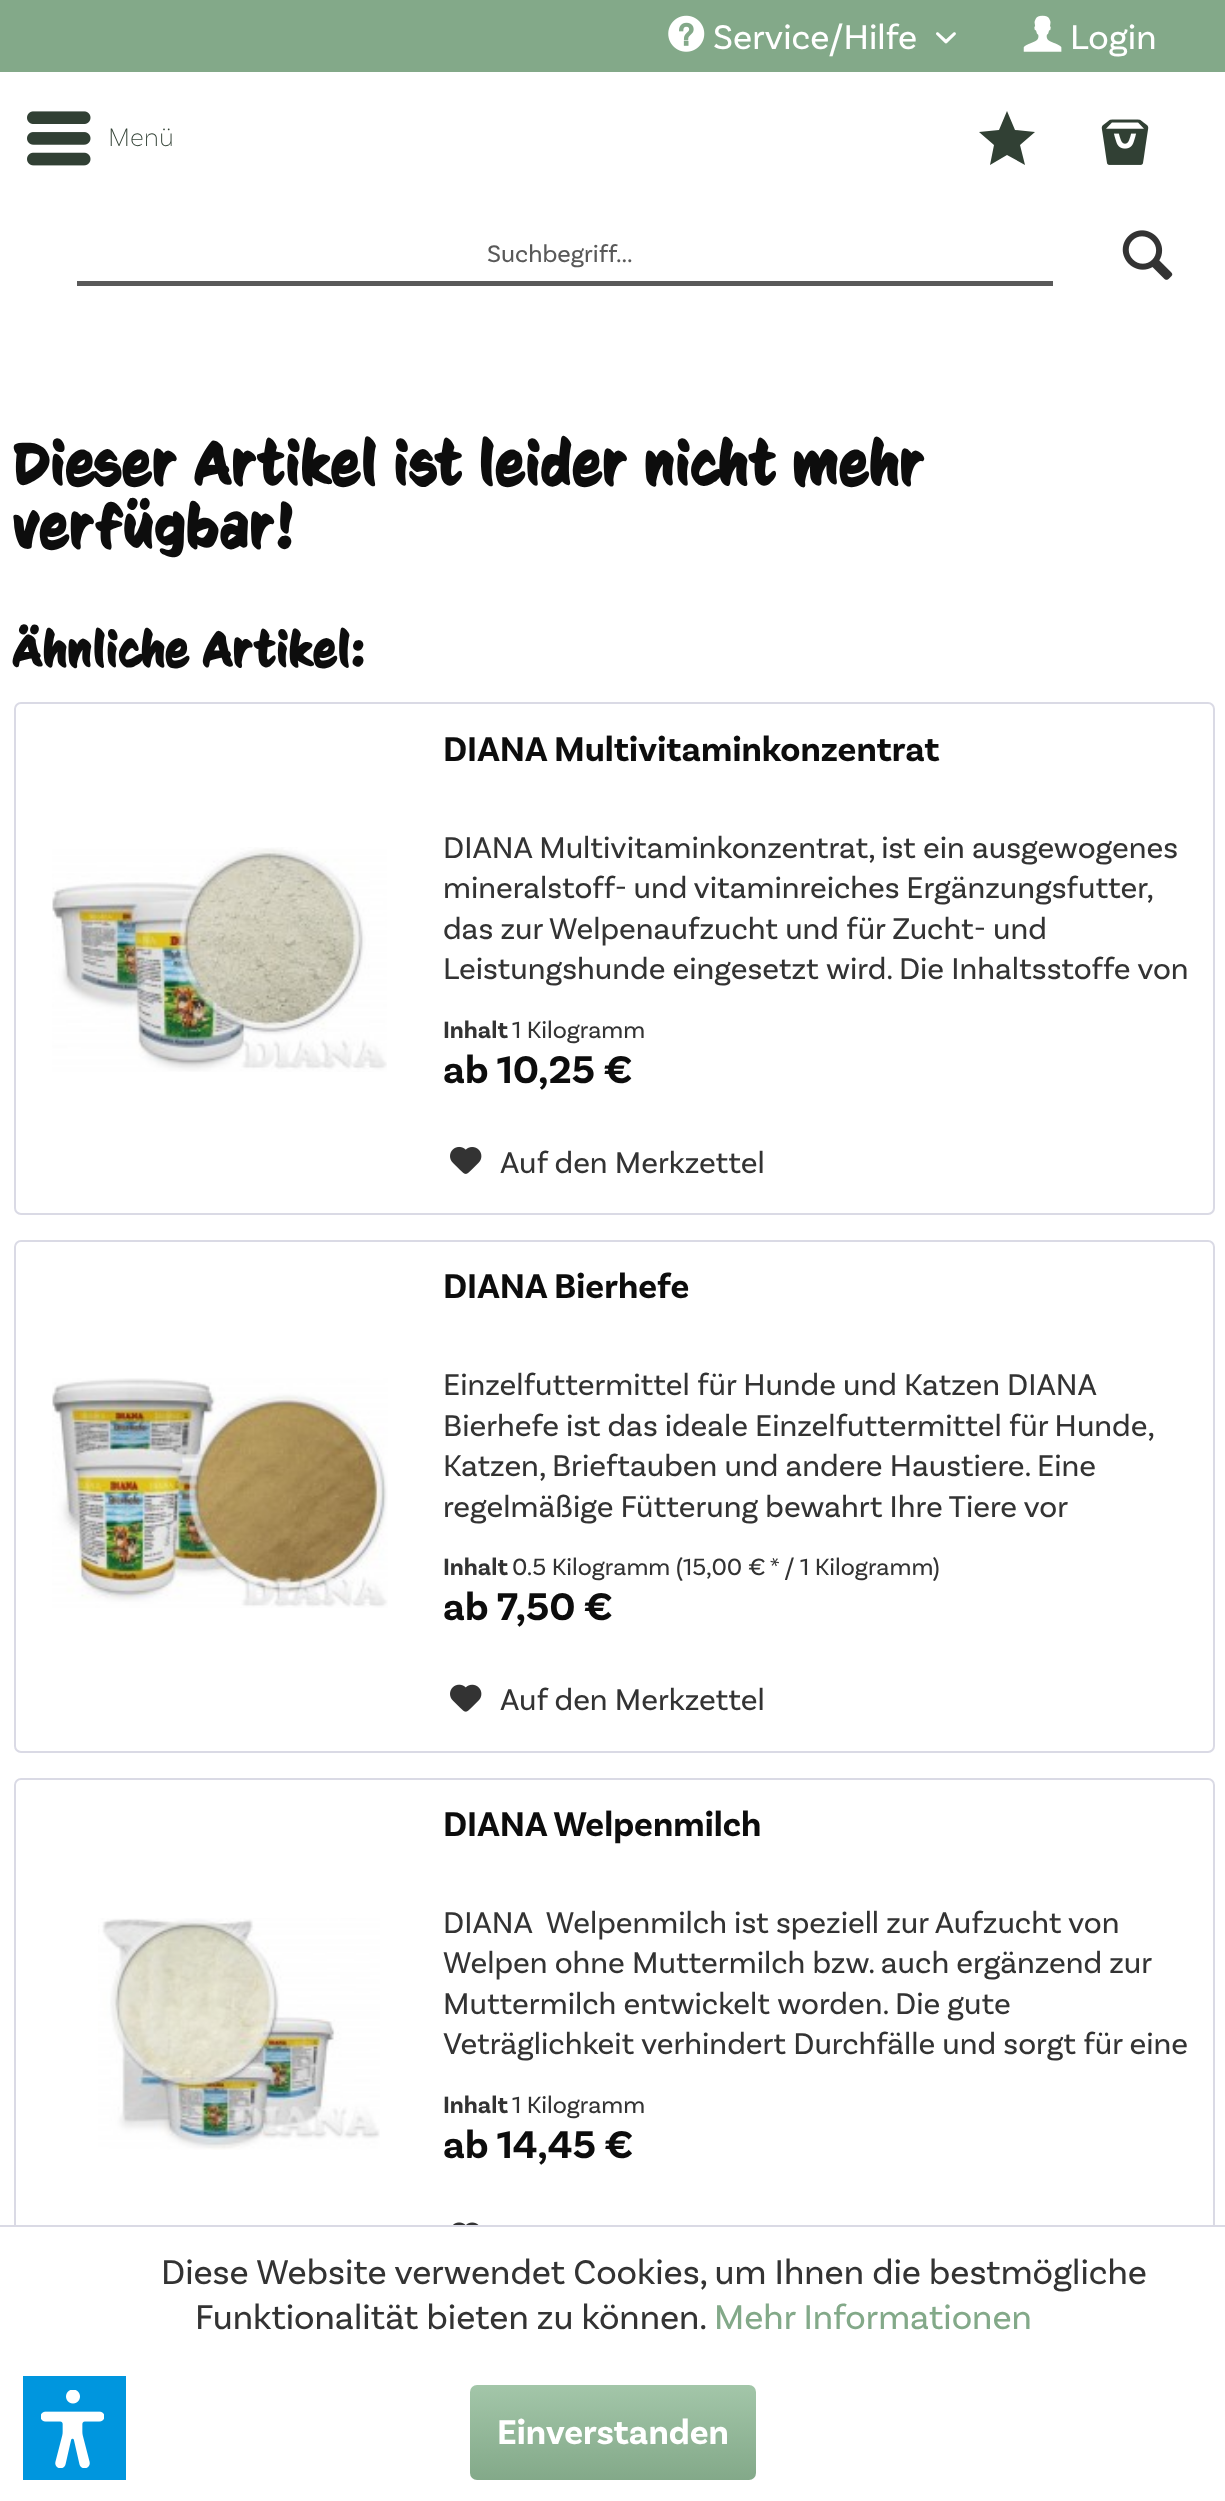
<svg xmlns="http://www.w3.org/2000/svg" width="1225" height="2501">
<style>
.a{font:36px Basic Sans;fill:#fff}
.b{font:200 27px Basic Sans;fill:#314034}
.c{font:25.25px Basic Sans;fill:#595959}
.d{font:bold 58.5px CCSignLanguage;fill:#0d0d0d}
.e{font:bold 47.25px CCSignLanguage;fill:#0d0d0d}
.f{font:bold 36px Basic Sans;fill:#0d0d0d}
.g{font:31.5px Basic Sans;fill:#333}
.h{font:bold 24.75px Basic Sans;fill:#333}
.i{font:24.75px Basic Sans;fill:#333}
.j{font:bold 40.5px Basic Sans;fill:#0d0d0d}
.k{font:36px Basic Sans;fill:#333}
.l{font:36px Basic Sans;fill:#83a989}
.m{font:bold 36px Basic Sans;fill:#fff}
</style>
<defs>
<linearGradient id="g1" gradientUnits="userSpaceOnUse" x1="613" y1="2385" x2="613" y2="2480"><stop offset="0" stop-color="#a3c6a9"/><stop offset="1" stop-color="#83a989"/></linearGradient>
</defs>
<rect width="100%" height="100%" fill="#fff"/>
<path fill="#83a989" d="M0 0h1225v72H0z"/>
<image href="1.png" x="668" y="15" width="37" height="37"/>
<image href="2.png" x="936" y="32" width="20" height="12"/>
<image href="3.png" x="1023" y="15" width="39" height="37"/>
<image href="4.png" x="27" y="111" width="64" height="55"/>
<path fill="#314034" d="M1007 111l-8 19l-20 2l15 13l-4 20l17-10l18 10l-5-20l15-13l-20-2z"/>
<image href="5.png" x="1101" y="119" width="48" height="46"/>
<path fill="#595959" d="M77 281h976v5H77z"/>
<image href="6.png" x="1122" y="230" width="51" height="50"/>
<rect fill="none" stroke="#dadae5" stroke-width="2" x="15" y="703" width="1199" height="511" rx="6"/>
<image href="7.png" x="52" y="847" width="335" height="225"/>
<image href="8.png" x="450" y="1146" width="32" height="28"/>
<rect fill="none" stroke="#dadae5" stroke-width="2" x="15" y="1241" width="1199" height="511" rx="6"/>
<image href="9.png" x="52" y="1378" width="336" height="230"/>
<image href="10.png" x="450" y="1684" width="32" height="28"/>
<rect fill="none" stroke="#dadae5" stroke-width="2" x="15" y="1779" width="1199" height="511" rx="6"/>
<image href="11.png" x="98" y="1918" width="282" height="232"/>
<image href="12.png" x="453" y="2222" width="26" height="3"/>
<path fill="#0096de" d="M23 2376h103v104H23z"/>
<image href="13.png" x="41" y="2390" width="63" height="78"/>
<path fill="#fff" d="M14 2227h1201v64H14z"/>
<path fill="#dadae5" d="M0 2225h1225v2H0z"/>
<rect fill="url(#g1)" x="470" y="2385" width="286" height="95" rx="7"/>
<text class="a" x="713" y="49">Service/Hilfe</text>
<text class="a" x="1070" y="49">Login</text>
<text class="b" x="108" y="146">Menü</text>
<text class="c" x="487" y="262">Suchbegriff...</text>
<text class="d" x="12" y="484">Dieser Artikel ist leider nicht mehr</text>
<text class="d" x="12" y="547">verfügbar!</text>
<text class="e" x="12" y="666">Ähnliche Artikel:</text>
<text class="f" x="443" y="761">DIANA Multivitaminkonzentrat</text>
<text class="g" x="443" y="858">DIANA Multivitaminkonzentrat, ist ein ausgewogenes</text>
<text class="g" x="443" y="898" word-spacing="-0.5">mineralstoff- und vitaminreiches Ergänzungsfutter,</text>
<text class="g" x="443" y="939">das zur Welpenaufzucht und für Zucht- und</text>
<text class="g" x="443" y="979">Leistungshunde eingesetzt wird. Die Inhaltsstoffe von</text>
<text class="h" x="443" y="1038">Inhalt</text>
<text class="i" x="512" y="1038">1 Kilogramm</text>
<text class="j" x="443" y="1083">ab 10,25 €</text>
<text class="g" x="500" y="1173">Auf den Merkzettel</text>
<text class="f" x="443" y="1298">DIANA Bierhefe</text>
<text class="g" x="443" y="1395">Einzelfuttermittel für Hunde und Katzen DIANA</text>
<text class="g" x="443" y="1436" word-spacing="-0.25">Bierhefe ist das ideale Einzelfuttermittel für Hunde,</text>
<text class="g" x="443" y="1476">Katzen, Brieftauben und andere Haustiere. Eine</text>
<text class="g" x="443" y="1517">regelmäßige Fütterung bewahrt Ihre Tiere vor</text>
<text class="h" x="443" y="1575">Inhalt</text>
<text class="i" x="512" y="1575">0.5 Kilogramm (15,00 € * / 1 Kilogramm)</text>
<text class="j" x="443" y="1620">ab 7,50 €</text>
<text class="g" x="500" y="1710">Auf den Merkzettel</text>
<text class="f" x="443" y="1836">DIANA Welpenmilch</text>
<text class="g" xml:space="preserve" x="443" y="1933">DIANA  Welpenmilch ist speziell zur Aufzucht von</text>
<text class="g" x="443" y="1973">Welpen ohne Muttermilch bzw. auch ergänzend zur</text>
<text class="g" x="443" y="2014">Muttermilch entwickelt worden. Die gute</text>
<text class="g" x="443" y="2054">Veträglichkeit verhindert Durchfälle und sorgt für eine</text>
<text class="h" x="443" y="2113">Inhalt</text>
<text class="i" x="512" y="2113">1 Kilogramm</text>
<text class="j" x="443" y="2158">ab 14,45 €</text>
<text class="k" x="161" y="2284">Diese Website verwendet Cookies, um Ihnen die bestmögliche</text>
<text class="k" x="195" y="2329">Funktionalität bieten zu können.</text>
<text class="l" x="714" y="2329">Mehr Informationen</text>
<text class="m" x="497" y="2444">Einverstanden</text>
</svg>
